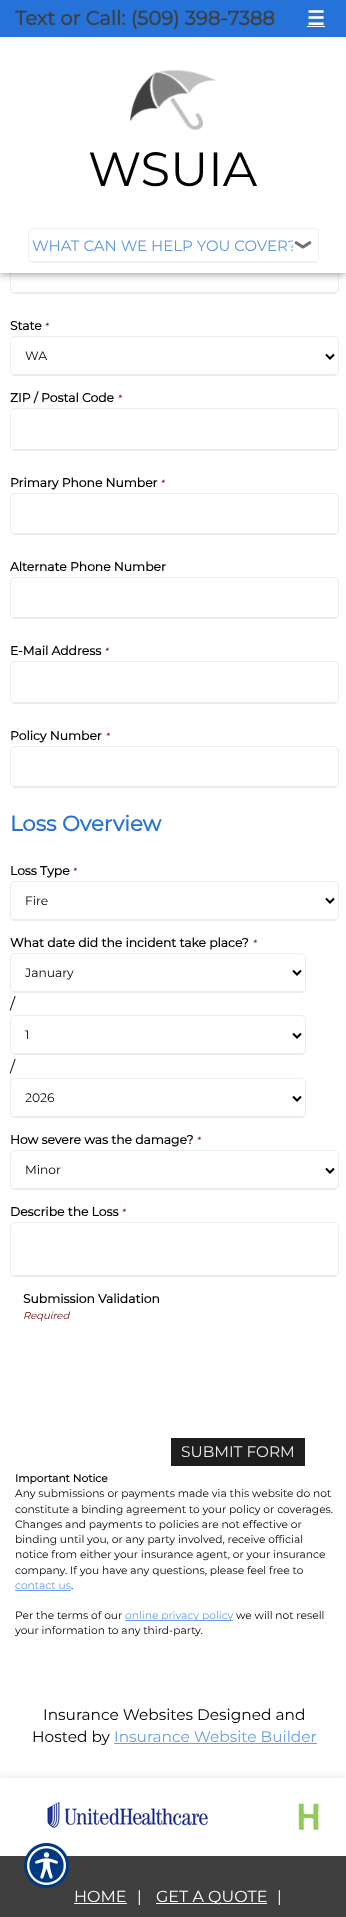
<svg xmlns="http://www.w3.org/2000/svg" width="346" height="1917">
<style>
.a{font:bold 19.6px Montserrat;fill:#3f3f3f}
.b{font:bold 19.6px DejaVu Sans;fill:#fff}
.c{font:100 48px Montserrat;fill:#000}
.d{font:100 15px Montserrat;fill:#5d97e3}
.e{font:bold 12.3px Montserrat;fill:#000}
.f{font:italic 100 10px Montserrat;fill:#600}
.g{font:100 12.3px Montserrat;fill:#000}
.h{font:bold 21.25px Montserrat;fill:#2573d9}
.i{font:100 15.4px Montserrat;fill:#000}
.j{font:100 15.4px Montserrat;fill:#ededed}
.k{font:bold 10.7px Montserrat;fill:#000}
.l{font:100 10.7px Montserrat;fill:#000}
.m{font:100 10.7px Montserrat;fill:#69a0e7}
.n{font:100 15.4px Montserrat;fill:#69a0e7}
.o{font:100 16px Montserrat;fill:#fff}
</style>
<defs>
<clipPath id="clip1"><path d="M32 235h261v21H32z"/></clipPath>
</defs>
<rect width="100%" height="100%" fill="#fff"/>
<rect fill="none" stroke="#ebebeb" x="10.5" y="252.5" width="328" height="41" rx="4.5"/>
<path fill="#00000080" filter="blur(5px)" d="M0 0h346v273H0z"/>
<path fill="#fff" d="M0 37h346v236H0z"/>
<path fill="#2573d9" d="M0 0h346v37H0z"/>
<path fill="#fff" d="M307 26h18v1H307z"/>
<image href="1.png" x="130" y="70" width="86" height="60"/>
<image href="2.png" x="294" y="241" width="18" height="8"/>
<rect fill="none" stroke="#f0f0f0" x="28.5" y="228.5" width="290" height="34" rx="3.5"/>
<path fill="#f0f0f0" d="M30 261h287v1H30z"/>
<path fill="#ebebeb" d="M13 292h324v1H13z"/>
<rect fill="none" stroke="#ebebeb" x="10.5" y="336.5" width="328" height="39" rx="4.5"/>
<path fill="#ebebeb" d="M13 374h324v1H13z"/>
<path fill="none" stroke="#000" stroke-width="2" d="M326 354.5l4 4l4-4"/>
<rect fill="none" stroke="#ebebeb" x="10.5" y="408.5" width="328" height="42" rx="4.5"/>
<path fill="#ebebeb" d="M13 449h324v1H13z"/>
<rect fill="none" stroke="#ebebeb" x="10.5" y="493.5" width="328" height="41" rx="4.5"/>
<path fill="#ebebeb" d="M13 533h324v1H13z"/>
<rect fill="none" stroke="#ebebeb" x="10.5" y="577.5" width="328" height="41" rx="4.5"/>
<path fill="#ebebeb" d="M13 617h324v1H13z"/>
<rect fill="none" stroke="#ebebeb" x="10.5" y="661.5" width="328" height="42" rx="4.5"/>
<path fill="#ebebeb" d="M13 702h324v1H13z"/>
<rect fill="none" stroke="#ebebeb" x="10.5" y="746.5" width="328" height="41" rx="4.5"/>
<path fill="#ebebeb" d="M13 786h324v1H13z"/>
<rect fill="none" stroke="#ebebeb" x="10.5" y="881.5" width="328" height="39" rx="4.5"/>
<path fill="#ebebeb" d="M13 919h324v1H13z"/>
<path fill="none" stroke="#000" stroke-width="2" d="M326 898.5l4 4l4-4"/>
<rect fill="none" stroke="#ebebeb" x="10.5" y="953.5" width="295" height="39" rx="4.5"/>
<path fill="#ebebeb" d="M13 991h291v1H13z"/>
<path fill="none" stroke="#000" stroke-width="2" d="M293 970.5l4 4l4-4"/>
<rect fill="none" stroke="#ebebeb" x="10.5" y="1015.5" width="295" height="39" rx="4.5"/>
<path fill="#ebebeb" d="M13 1053h291v1H13z"/>
<path fill="none" stroke="#000" stroke-width="2" d="M293 1033.5l4 4l4-4"/>
<rect fill="none" stroke="#ebebeb" x="10.5" y="1078.5" width="295" height="39" rx="4.5"/>
<path fill="#ebebeb" d="M13 1116h291v1H13z"/>
<path fill="none" stroke="#000" stroke-width="2" d="M293 1096.5l4 4l4-4"/>
<rect fill="none" stroke="#ebebeb" x="10.5" y="1150.5" width="328" height="39" rx="4.5"/>
<path fill="#ebebeb" d="M13 1188h324v1H13z"/>
<path fill="none" stroke="#000" stroke-width="2" d="M326 1168.5l4 4l4-4"/>
<rect fill="none" stroke="#ebebeb" x="10.5" y="1222.5" width="328" height="54" rx="4.5"/>
<path fill="#ebebeb" d="M13 1275h324v1H13z"/>
<path fill="#1e1e1e" d="M171 1438h134v28H171z"/>
<path fill="#69a0e7" d="M15 1590h56v1H15z"/>
<path fill="#69a0e7" d="M125 1620h108v1H125z"/>
<path fill="#69a0e7" d="M114 1743h203v1H114z"/>
<path fill="#0000001f" filter="blur(5px)" d="M0 1778h346v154H0z"/>
<path fill="#3f3f3f" d="M0 1856h346v61H0z"/>
<path fill="#fff" d="M0 1778h346v78H0z"/>
<image href="3.png" x="46" y="1801" width="162" height="32"/>
<image href="4.png" x="295" y="1802" width="24" height="31"/>
<path fill="#fff" d="M74 1903h53v1H74z"/>
<path fill="#fff" d="M156 1903h111v1H156z"/>
<image href="5.png" x="24" y="1843" width="45" height="45"/>
<text class="a" x="15" y="25">Text or Call: (509) 398-7388</text>
<text class="b" x="307" y="25">☰</text>
<text class="c" x="88" y="186">WSUIA</text>
<g clip-path="url(#clip1)">
<text class="d" x="32" y="251">WHAT CAN WE HELP YOU COVER?</text>
</g>
<text class="e" x="10" y="330">State</text>
<text class="f" x="44" y="330">*</text>
<text class="g" x="25" y="360">WA</text>
<text class="e" x="10" y="402">ZIP / Postal Code</text>
<text class="f" x="117" y="402">*</text>
<text class="e" x="10" y="487">Primary Phone Number</text>
<text class="f" x="160" y="487">*</text>
<text class="e" x="10" y="571">Alternate Phone Number</text>
<text class="e" x="10" y="655">E-Mail Address</text>
<text class="f" x="104" y="655">*</text>
<text class="e" x="10" y="740">Policy Number</text>
<text class="f" x="105" y="740">*</text>
<text class="h" x="10" y="831">Loss Overview</text>
<text class="e" x="10" y="875">Loss Type</text>
<text class="f" x="72" y="875">*</text>
<text class="g" x="25" y="905">Fire</text>
<text class="e" x="10" y="947">What date did the incident take place?</text>
<text class="f" x="252" y="947">*</text>
<text class="g" x="25" y="977">January</text>
<text class="i" x="10" y="1009">/</text>
<text class="g" x="25" y="1039">1</text>
<text class="i" x="10" y="1072">/</text>
<text class="g" x="25" y="1102">2026</text>
<text class="e" x="10" y="1144">How severe was the damage?</text>
<text class="f" x="196" y="1144">*</text>
<text class="g" x="25" y="1174">Minor</text>
<text class="e" x="10" y="1216">Describe the Loss</text>
<text class="f" x="121" y="1216">*</text>
<text class="e" x="23" y="1303">Submission Validation</text>
<text class="f" x="23" y="1319">Required</text>
<text class="j" x="181" y="1457">SUBMIT FORM</text>
<text class="k" x="15" y="1482">Important Notice</text>
<text class="l" x="15" y="1497">Any submissions or payments made via this website do not</text>
<text class="l" x="15" y="1513">constitute a binding agreement to your policy or coverages.</text>
<text class="l" x="15" y="1528">Changes and payments to policies are not effective or</text>
<text class="l" x="15" y="1543">binding until you, or any party involved, receive official</text>
<text class="l" x="15" y="1558">notice from either your insurance agent, or your insurance</text>
<text class="l" x="15" y="1574">company. If you have any questions, please feel free to</text>
<text class="m" x="15" y="1589">contact us</text>
<text class="l" x="71" y="1589">.</text>
<text class="l" x="15" y="1619">Per the terms of our</text>
<text class="m" x="125" y="1619">online privacy policy</text>
<text class="l" x="236" y="1619">we will not resell</text>
<text class="l" x="15" y="1634">your information to any third-party.</text>
<text class="i" x="43" y="1720">Insurance Websites Designed and</text>
<text class="i" x="32" y="1742">Hosted by</text>
<text class="n" x="114" y="1742">Insurance Website Builder</text>
<text class="o" x="74" y="1902">HOME</text>
<text class="o" x="137" y="1902">|</text>
<text class="o" x="156" y="1902">GET A QUOTE</text>
<text class="o" x="277" y="1902">|</text>
</svg>
